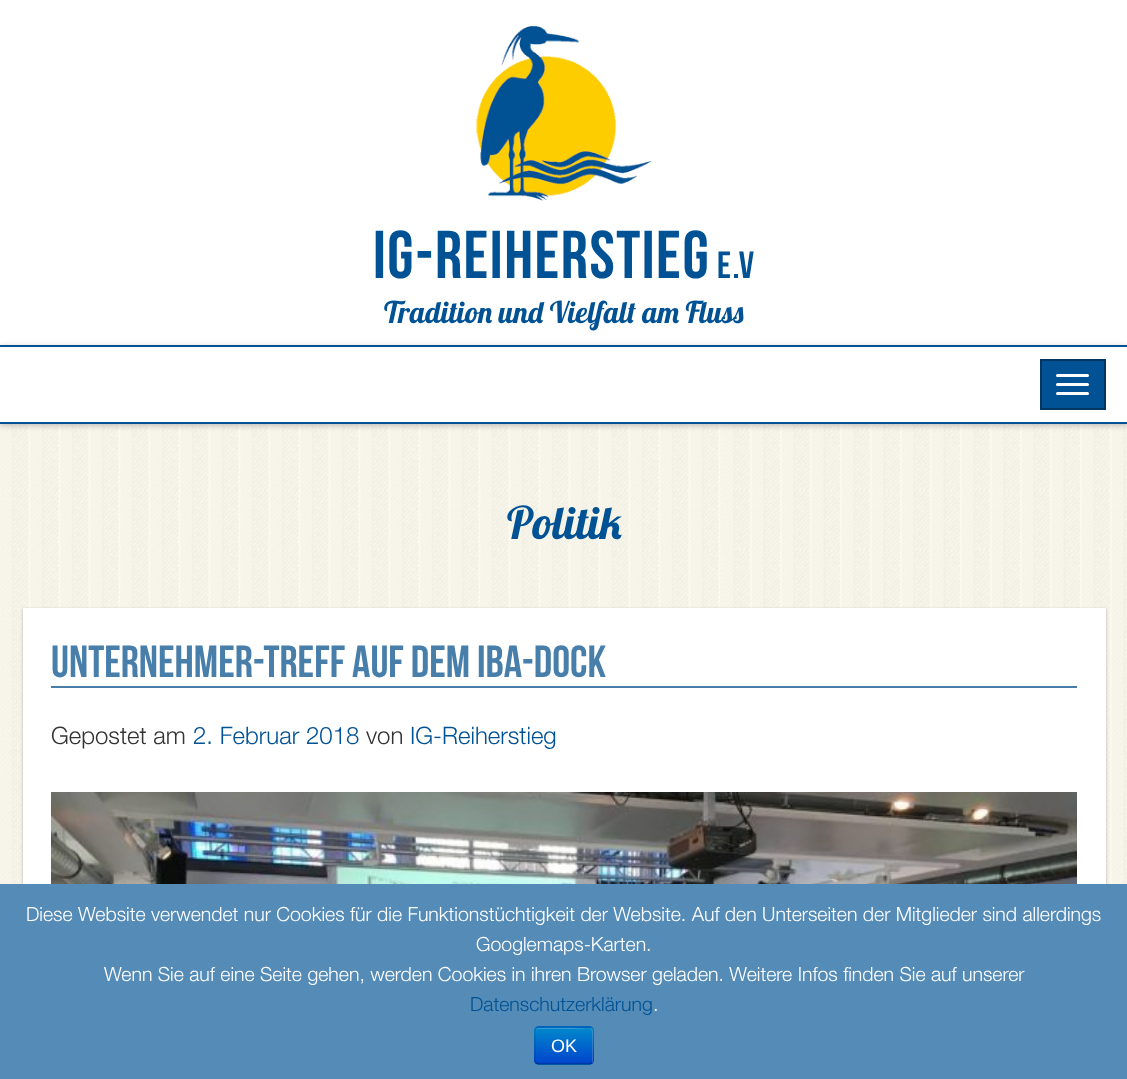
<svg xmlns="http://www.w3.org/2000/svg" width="1127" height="1079">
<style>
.a{font:67.5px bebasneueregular;letter-spacing:1.5px;fill:#005294}
.b{font:38px bebasneueregular;letter-spacing:1.5px;fill:#005294}
.c{font:30px Lobster;fill:#005294}
.d{font:45px Lobster;fill:#005294}
.e{font:45px bebasneueregular;fill:#487eaa}
.f{font:300 24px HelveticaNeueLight;fill:#333}
.g{font:300 24px HelveticaNeueLight;fill:#005294}
.h{font:300 19.5px HelveticaNeueLight;fill:#fff}
.i{font:300 19.5px HelveticaNeueLight;fill:#005294}
.j{font:18px Liberation Sans;fill:#fff}
</style>
<defs>
<clipPath id="clip1"><rect x="534" y="1026" width="60" height="39" rx="5"/></clipPath>
<linearGradient id="g1" gradientUnits="userSpaceOnUse" x1="564" y1="1028" x2="564" y2="1064"><stop offset="0" stop-color="#08c"/><stop offset="1" stop-color="#04c"/></linearGradient>
</defs>
<rect width="100%" height="100%" fill="#fff"/>
<image href="1.png" x="0" y="424" width="1127" height="460"/>
<image href="2.png" x="475" y="25" width="177" height="176"/>
<path fill="#00000040" filter="blur(3px)" d="M0 347h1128v78H0z"/>
<path fill="#fff" d="M0 347h1127v75H0z"/>
<path fill="#005294" d="M0 345h1127v2H0z"/>
<path fill="#005294" d="M0 422h1127v2H0z"/>
<path fill="#005294" stroke="#003661" stroke-width="2" d="M1041 360h64v49H1041z"/>
<rect fill="#fff" x="1056" y="374" width="33" height="3" rx="1.5"/>
<rect fill="#fff" x="1056" y="383" width="33" height="3" rx="1.5"/>
<rect fill="#fff" x="1056" y="392" width="33" height="3" rx="1.5"/>
<path fill="#00000040" filter="blur(1.5px)" d="M23 609h1083v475H23z"/>
<path fill="#fff" d="M23 608h1083v276H23z"/>
<path fill="#487eaa" d="M51 686h1026v2H51z"/>
<image href="3.png" x="51" y="792" width="1026" height="92"/>
<path fill="#548bb7" d="M0 884h1127v195H0z"/>
<rect fill="#006dcc" x="534" y="1026" width="60" height="39" rx="5"/>
<g clip-path="url(#clip1)">
<path fill="url(#g1)" d="M534 1028h60v36H534z"/>
</g>
<path fill="#ffffff33" d="M538 1029h35c21 0 19-5 19 13v21c1 0 1-1 1-2v-30c0-2-1-3-3-3h-51c-2 0-3 1-3 3v1c0-2 1-3 2-3z"/>
<path fill="none" stroke="#00000040" stroke-width="1.5" d="M592 1063l-2 1h-52l-2-1"/>
<path fill="none" stroke="#0000001a" stroke-width="1.5" d="M536 1063c-1-.5-1-1.5-1-2.5v-30c0-1 0-2 1-2.5c.5-1 1.5-1 2.5-1h51c1 0 2 0 2.5 1c1 .5 1 1.5 1 2.5v30c0 1 0 2-1 2.5"/>
<text class="a" x="373" y="278">IG-Reiherstieg</text>
<text class="b" x="717" y="278">E.V</text>
<text class="c" x="384" y="323">Tradition und Vielfalt am Fluss</text>
<text class="d" x="507" y="539">Politik</text>
<text class="e" x="51" y="677">Unternehmer-Treff auf dem IBA-Dock</text>
<text class="f" x="51" y="744">Gepostet am</text>
<text class="g" x="193" y="744">2. Februar 2018</text>
<text class="f" x="366" y="744">von</text>
<text class="g" x="410" y="744">IG-Reiherstieg</text>
<text class="h" x="26" y="921">Diese Website verwendet nur Cookies für die Funktionstüchtigkeit der Website. Auf den Unterseiten der Mitglieder sind allerdings</text>
<text class="h" x="476" y="951">Googlemaps-Karten.</text>
<text class="h" x="104" y="981">Wenn Sie auf eine Seite gehen, werden Cookies in ihren Browser geladen. Weitere Infos finden Sie auf unserer</text>
<text class="i" x="470" y="1011">Datenschutzerklärung</text>
<text class="h" x="653" y="1011">.</text>
<text class="j" x="551" y="1052">OK</text>
</svg>
